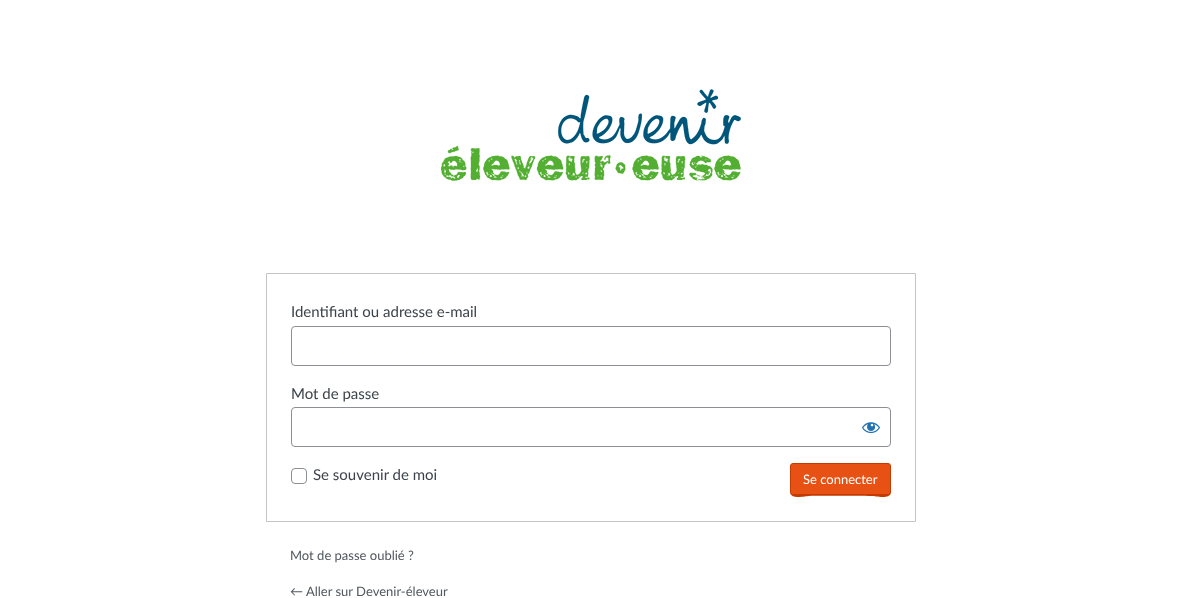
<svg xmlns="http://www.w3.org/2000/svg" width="1181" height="598">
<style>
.a{font:15px Lato;fill:#3c434a}
.b{font:13px Lato;fill:#fff}
.c{font:13px Lato;fill:#50575e}
</style>
<rect width="100%" height="100%" fill="#fff"/>
<image href="1.png" x="441" y="89" width="300" height="92"/>
<path fill="none" stroke="#c3c4c7" d="M266.5 273.5h649v248H266.5z"/>
<rect fill="none" stroke="#8c8f94" x="291.5" y="326.5" width="599" height="39" rx="3.5"/>
<rect fill="none" stroke="#8c8f94" x="291.5" y="407.5" width="599" height="39" rx="3.5"/>
<image href="2.png" x="862" y="422" width="18" height="12"/>
<rect fill="none" stroke="#8c8f94" x="291.5" y="468.5" width="15" height="15" rx="3.5"/>
<path fill="#c53a00" d="M790 492c0 8 16 4 19 4h63c3 0 19 4 19-4l-1 2c-2 2-87 1-97 1l-2-1z"/>
<rect fill="#e75113" stroke="#c53a00" x="790.5" y="463.5" width="100" height="31" rx="2.5"/>
<text class="a" x="291" y="317">Identifiant ou adresse e-mail</text>
<text class="a" x="291" y="399">Mot de passe</text>
<text class="a" x="313" y="480">Se souvenir de moi</text>
<text class="b" x="803" y="484">Se connecter</text>
<text class="c" x="290" y="560">Mot de passe oublié ?</text>
<text class="c" x="290" y="596">← Aller sur Devenir-éleveur</text>
</svg>
